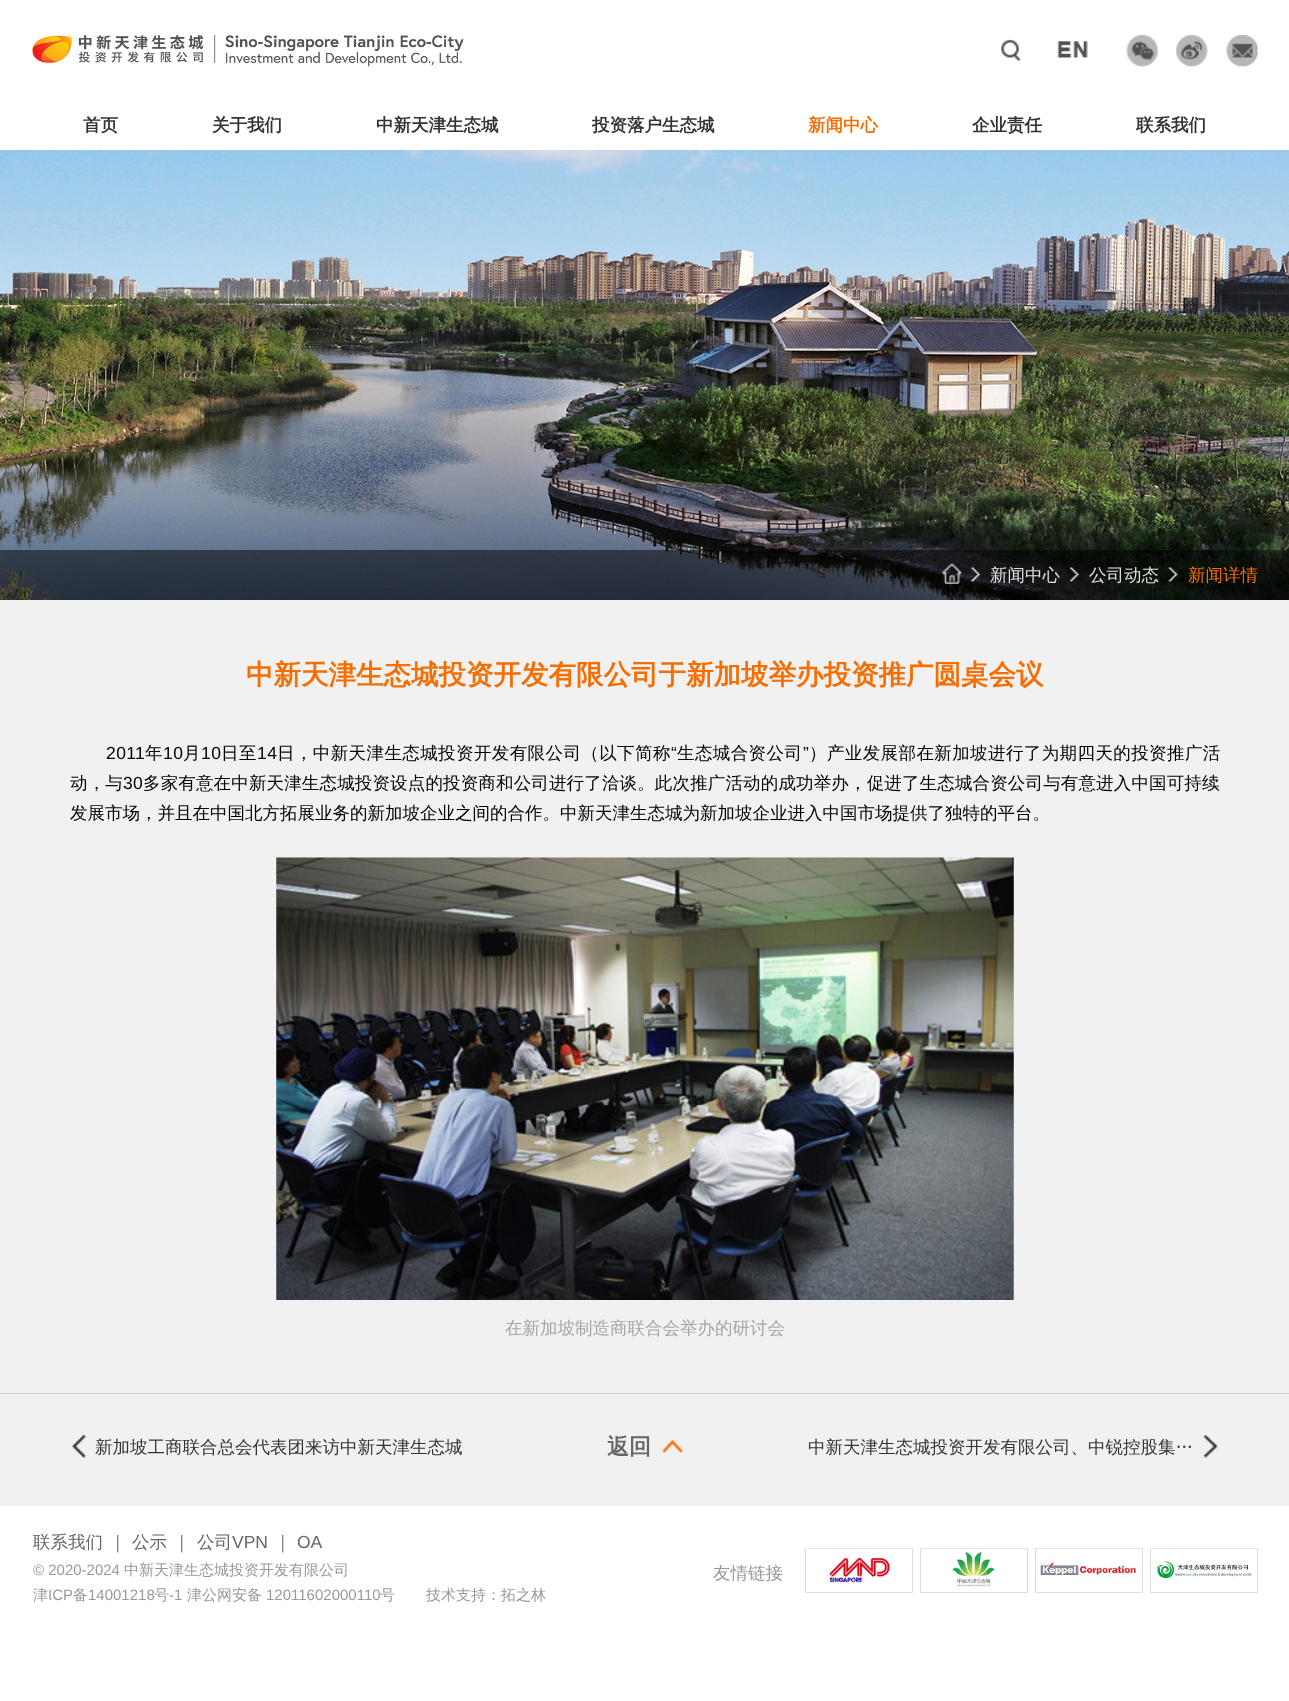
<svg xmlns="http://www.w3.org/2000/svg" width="1289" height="1701">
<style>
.a{font:bold 17.5px WenQuanYi Zen Hei;fill:#333}
.b{font:bold 17.5px WenQuanYi Zen Hei;fill:#f66e02}
.c{font:500 17.5px WenQuanYi Zen Hei;fill:#e0dfdd}
.d{font:500 17.5px WenQuanYi Zen Hei;fill:#f66e02}
.e{font:bold 27.5px WenQuanYi Zen Hei;fill:#f66e02}
.f{font:17.5px Liberation Sans;letter-spacing:0.4px;fill:#000}
.g{font:500 17.5px WenQuanYi Zen Hei;letter-spacing:0.4px;fill:#000}
.h{font:500 17.5px WenQuanYi Zen Hei;letter-spacing:0.15px;fill:#000}
.i{font:17.5px Liberation Sans;letter-spacing:0.15px;fill:#000}
.j{font:500 17.5px WenQuanYi Zen Hei;fill:#000}
.k{font:500 17.5px WenQuanYi Zen Hei;fill:#a5a5a5}
.l{font:500 17.5px WenQuanYi Zen Hei;fill:#333}
.m{font:bold 22px WenQuanYi Zen Hei;fill:#666}
.n{font:500 17.5px WenQuanYi Zen Hei;fill:#666}
.o{font:17.5px Liberation Sans;fill:#666}
.p{font:15px Liberation Sans;fill:#999}
.q{font:500 15px WenQuanYi Zen Hei;fill:#999}
.r{font:500 17.5px WenQuanYi Zen Hei;fill:#999}
</style>
<rect width="100%" height="100%" fill="#fff"/>
<image href="1.png" x="32" y="35" width="432" height="32"/>
<image href="2.png" x="1001" y="39" width="20" height="25"/>
<image href="3.png" x="1057" y="38" width="31" height="20"/>
<image href="4.png" x="1126" y="35" width="32" height="32"/>
<image href="5.png" x="1176" y="35" width="32" height="32"/>
<image href="6.png" x="1226" y="35" width="32" height="32"/>
<image href="7.png" x="0" y="150" width="1289" height="450"/>
<path fill="#00000080" d="M0 550h1289v50H0z"/>
<image href="8.png" x="942" y="563" width="20" height="21"/>
<image href="9.png" x="971" y="567" width="9" height="15"/>
<image href="10.png" x="1070" y="567" width="9" height="15"/>
<image href="11.png" x="1168" y="567" width="10" height="15"/>
<path fill="#f1f1f1" d="M0 600h1289v793H0z"/>
<image href="12.png" x="276" y="857" width="738" height="443"/>
<path fill="#f1f1f1" d="M0 1394h1289v112H0z"/>
<path fill="#ccc" d="M0 1393h1289v1H0z"/>
<image href="13.png" x="72" y="1434" width="15" height="24"/>
<image href="14.png" x="662" y="1439" width="21" height="14"/>
<image href="15.png" x="1203" y="1434" width="15" height="24"/>
<path fill="none" stroke="#ddd" d="M805.5 1548.5h107v44H805.5z"/>
<image href="16.png" x="806" y="1548" width="105" height="35"/>
<path fill="none" stroke="#ddd" d="M920.5 1548.5h107v44H920.5z"/>
<image href="17.png" x="921" y="1548" width="105" height="39"/>
<path fill="none" stroke="#ddd" d="M1035.5 1548.5h107v44H1035.5z"/>
<image href="18.png" x="1036" y="1548" width="105" height="30"/>
<path fill="none" stroke="#ddd" d="M1150.5 1548.5h107v44H1150.5z"/>
<image href="19.png" x="1151" y="1548" width="105" height="31"/>
<text class="a" x="83" y="131">首页</text>
<text class="a" x="212" y="131">关于我们</text>
<text class="a" x="376" y="131">中新天津生态城</text>
<text class="a" x="592" y="131">投资落户生态城</text>
<text class="b" x="808" y="131">新闻中心</text>
<text class="a" x="972" y="131">企业责任</text>
<text class="a" x="1136" y="131">联系我们</text>
<text class="c" x="990" y="581">新闻中心</text>
<text class="c" x="1089" y="581">公司动态</text>
<text class="d" x="1188" y="581">新闻详情</text>
<text class="e" x="246" y="684">中新天津生态城投资开发有限公司于新加坡举办投资推广圆桌会议</text>
<text class="f" x="106" y="759">2011</text>
<text class="g" x="145" y="759">年</text>
<text class="f" x="163" y="759">10</text>
<text class="g" x="183" y="759">月</text>
<text class="f" x="201" y="759">10</text>
<text class="g" x="221" y="759">日至</text>
<text class="f" x="257" y="759">14</text>
<text class="g" x="277" y="759">日，中新天津生态城投资开发有限公司（以下简称</text>
<text class="f" x="671" y="759">“</text>
<text class="g" x="677" y="759">生态城合资公司</text>
<text class="f" x="803" y="759">”</text>
<text class="g" x="809" y="759">）产业发展部在新加坡进行了为期四天的投资推广活</text>
<text class="h" x="70" y="789">动，与</text>
<text class="i" x="123" y="789">30</text>
<text class="h" x="143" y="789">多家有意在中新天津生态城投资设点的投资商和公司进行了洽谈。此次推广活动的成功举办，促进了生态城合资公司与有意进入中国可持续</text>
<text class="j" x="70" y="819">发展市场，并且在中国北方拓展业务的新加坡企业之间的合作。中新天津生态城为新加坡企业进入中国市场提供了独特的平台。</text>
<text class="k" x="505" y="1334">在新加坡制造商联合会举办的研讨会</text>
<text class="l" x="95" y="1453">新加坡工商联合总会代表团来访中新天津生态城</text>
<text class="m" x="607" y="1454">返回</text>
<text class="l" x="808" y="1453">中新天津生态城投资开发有限公司、中锐控股集…</text>
<text class="n" x="33" y="1548">联系我们</text>
<text class="n" x="109" y="1548">｜</text>
<text class="n" x="132" y="1548">公示</text>
<text class="n" x="173" y="1548">｜</text>
<text class="n" x="197" y="1548">公司</text>
<text class="o" x="232" y="1548">VPN</text>
<text class="n" x="274" y="1548">｜</text>
<text class="o" x="297" y="1548">OA</text>
<text class="p" x="33" y="1575">© 2020-2024</text>
<text class="q" x="124" y="1575">中新天津生态城投资开发有限公司</text>
<text class="r" x="713" y="1579">友情链接</text>
<text class="q" x="33" y="1600">津</text>
<text class="p" x="48" y="1600">ICP</text>
<text class="q" x="73" y="1600">备</text>
<text class="p" x="88" y="1600">14001218</text>
<text class="q" x="154" y="1600">号</text>
<text class="p" x="169" y="1600">-1</text>
<text class="q" x="187" y="1600">津公网安备</text>
<text class="p" x="266" y="1600">12011602000110</text>
<text class="q" x="380" y="1600">号</text>
<text class="q" x="426" y="1600">技术支持：拓之林</text>
</svg>
